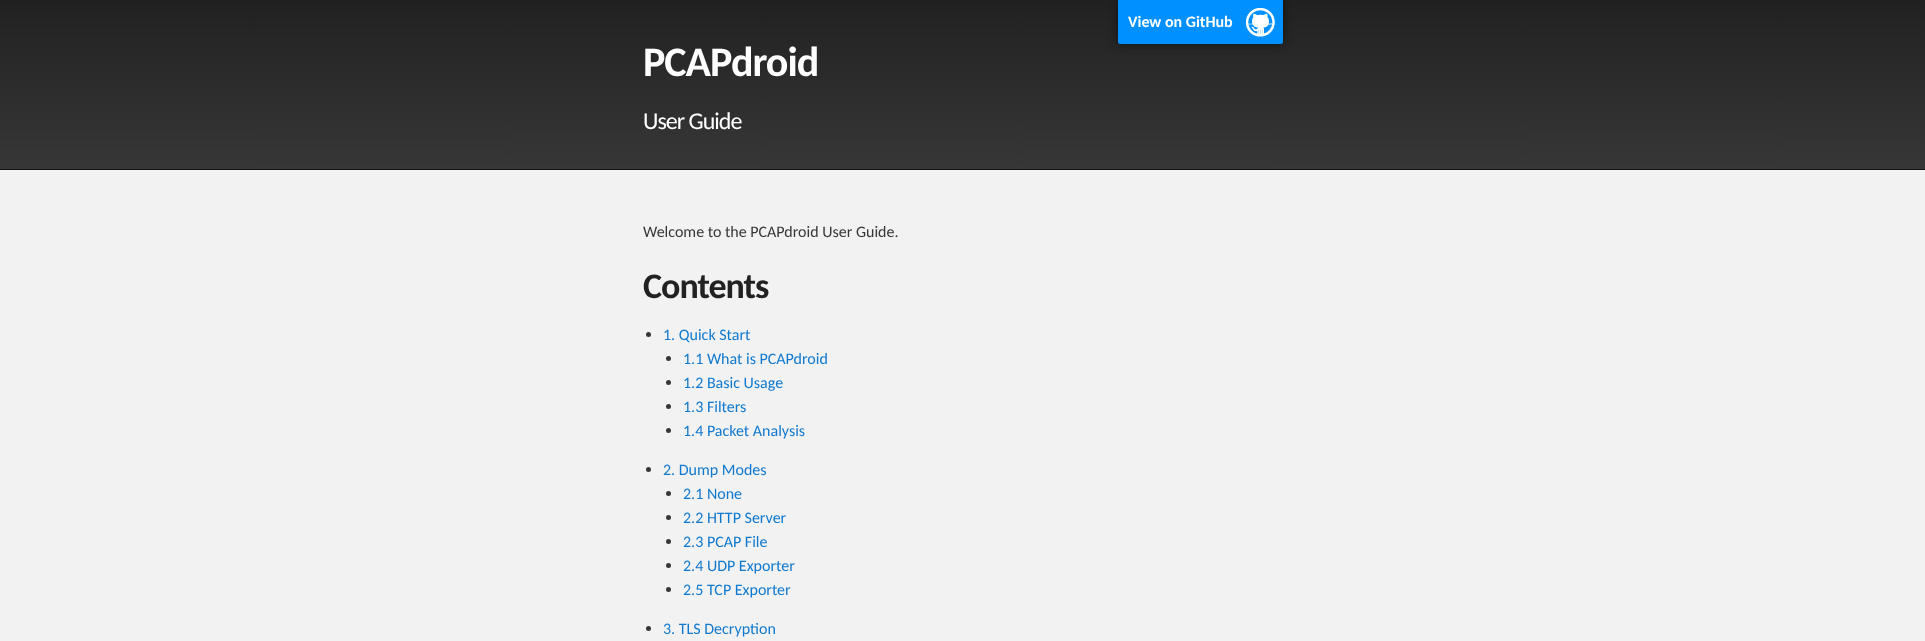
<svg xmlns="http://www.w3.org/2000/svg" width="1925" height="641">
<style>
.a{font:bold 16px Carlito;fill:#fff}
.b{font:bold 42px Carlito;letter-spacing:-1px;fill:#fff}
.c{font:24px Carlito;letter-spacing:-1px;fill:#fff}
.d{font:16px Carlito;fill:#373737}
.e{font:bold 36px Carlito;letter-spacing:-1px;fill:#222}
.f{font:16px Carlito;fill:#0f79d0}
</style>
<defs>
<linearGradient id="g1" gradientUnits="userSpaceOnUse" x1="963" y1="169" x2="963" y2="0"><stop offset="0" stop-color="#373737"/><stop offset="1" stop-color="#212121"/></linearGradient>
</defs>
<rect width="100%" height="100%" fill="#fff"/>
<path fill="url(#g1)" d="M0 0h1925v169H0z"/>
<rect fill="#00000080" filter="blur(5px)" x="1118" width="165" height="44" rx="2"/>
<path fill="#0090ff" d="M1118 0h165v42c0 1-1 2-2 2h-161c-1 0-2-1-2-2z"/>
<image href="1.png" x="1246" y="8" width="29" height="29"/>
<path fill="#f2f2f2" d="M0 170h1925v471H0z"/>
<path fill="#111" d="M0 169h1925v1H0z"/>
<circle fill="#373737" cx="648.5" cy="334.5" r="2.5"/>
<circle fill="#373737" cx="668.5" cy="358.5" r="2.5"/>
<circle fill="#373737" cx="668.5" cy="382.5" r="2.5"/>
<circle fill="#373737" cx="668.5" cy="406.5" r="2.5"/>
<circle fill="#373737" cx="668.5" cy="430.5" r="2.5"/>
<circle fill="#373737" cx="648.5" cy="469.5" r="2.5"/>
<circle fill="#373737" cx="668.5" cy="493.5" r="2.5"/>
<circle fill="#373737" cx="668.5" cy="517.5" r="2.5"/>
<circle fill="#373737" cx="668.5" cy="541.5" r="2.5"/>
<circle fill="#373737" cx="668.5" cy="565.5" r="2.5"/>
<circle fill="#373737" cx="668.5" cy="589.5" r="2.5"/>
<circle fill="#373737" cx="648.5" cy="628.5" r="2.5"/>
<text class="a" x="1128" y="27">View on GitHub</text>
<text class="b" x="643" y="76">PCAPdroid</text>
<text class="c" x="643" y="129">User Guide</text>
<text class="d" x="643" y="237">Welcome to the PCAPdroid User Guide.</text>
<text class="e" x="643" y="298">Contents</text>
<text class="f" x="663" y="340">1. Quick Start</text>
<text class="f" x="683" y="364">1.1 What is PCAPdroid</text>
<text class="f" x="683" y="388">1.2 Basic Usage</text>
<text class="f" x="683" y="412">1.3 Filters</text>
<text class="f" x="683" y="436">1.4 Packet Analysis</text>
<text class="f" x="663" y="475">2. Dump Modes</text>
<text class="f" x="683" y="499">2.1 None</text>
<text class="f" x="683" y="523">2.2 HTTP Server</text>
<text class="f" x="683" y="547">2.3 PCAP File</text>
<text class="f" x="683" y="571">2.4 UDP Exporter</text>
<text class="f" x="683" y="595">2.5 TCP Exporter</text>
<text class="f" x="663" y="634">3. TLS Decryption</text>
</svg>
